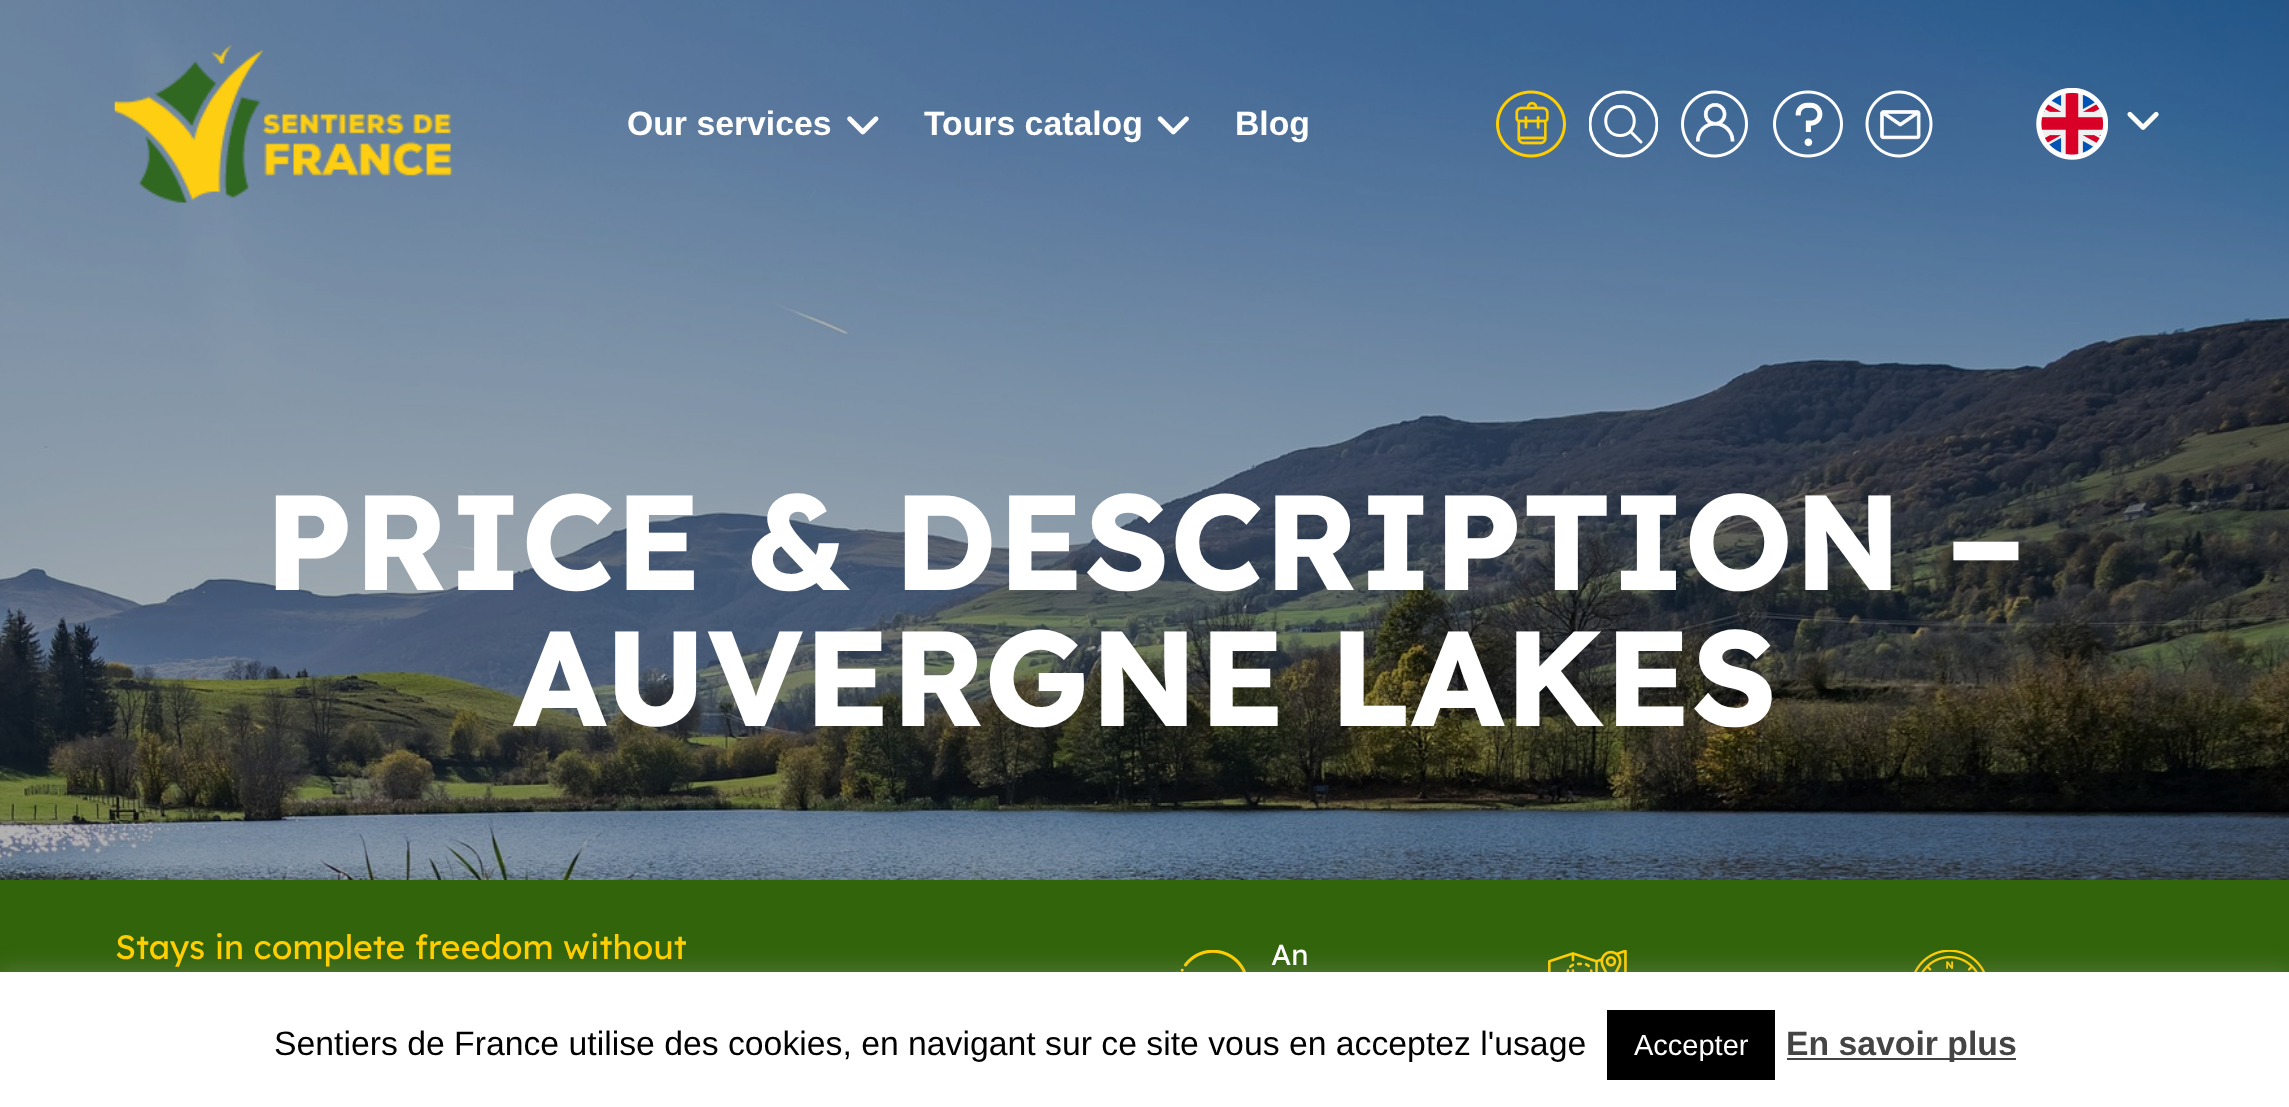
<svg xmlns="http://www.w3.org/2000/svg" width="2289" height="1107">
<style>
.a{font:bold 33.75px Liberation Sans;fill:#fff}
.b{font:bold 135px Lexend;fill:#fff}
.c{font:33.75px Lexend;fill:#ffce00}
.d{font:29px Lexend;fill:#fff}
.e{font:33.75px Liberation Sans;fill:#000}
.f{font:29px Liberation Sans;fill:#fff}
.g{font:bold 33.75px Liberation Sans;fill:#444}
</style>
<defs>
<clipPath id="clip1"><path d="M1589 90h69v68H1589z"/></clipPath>
</defs>
<rect width="100%" height="100%" fill="#fff"/>
<image href="1.png" x="0" y="0" width="2289" height="880"/>
<image href="2.png" x="114" y="45" width="339" height="158"/>
<image href="3.png" x="847" y="116" width="32" height="19"/>
<image href="4.png" x="1157" y="116" width="32" height="19"/>
<image href="5.png" x="1496" y="90" width="70" height="68"/>
<g clip-path="url(#clip1)">
<ellipse fill="none" stroke="#fff" stroke-width="3" cx="1623.5" cy="124" rx="33.5" ry="32"/>
</g>
<path fill="none" stroke="#fff" stroke-width="3" d="M1620 106.5c-19 0-19 29 0 29c19 0 19-29 0-29z"/>
<path fill="none" stroke="#fff" stroke-width="3" stroke-linecap="round" d="M1630.5 131.5l10.5 10.5"/>
<image href="6.png" x="1681" y="90" width="67" height="68"/>
<image href="7.png" x="1773" y="90" width="70" height="68"/>
<image href="8.png" x="1865" y="90" width="68" height="68"/>
<image href="9.png" x="2036" y="88" width="72" height="72"/>
<image href="10.png" x="2127" y="111" width="32" height="19"/>
<path fill="#32640c" d="M0 880h2289v92H0z"/>
<image href="11.png" x="1176" y="950" width="70" height="22"/>
<image href="12.png" x="1548" y="950" width="79" height="22"/>
<image href="13.png" x="1914" y="950" width="72" height="22"/>
<path fill="#acabab4d" filter="blur(11px)" d="M0 970h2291v135H0z"/>
<path fill="#fff" d="M0 972h2289v135H0z"/>
<path fill="#000" d="M1607 1010h168v70H1607z"/>
<path fill="#444" d="M1787 1058h229v2H1787z"/>
<text class="a" x="627" y="135">Our services</text>
<text class="a" x="924" y="135">Tours catalog</text>
<text class="a" x="1235" y="135">Blog</text>
<text class="b" x="264" y="590">PRICE &amp; DESCRIPTION –</text>
<text class="b" x="513" y="726">AUVERGNE LAKES</text>
<text class="c" x="115" y="959">Stays in complete freedom without</text>
<text class="d" x="1271" y="965">An</text>
<text class="e" x="274" y="1055">Sentiers de France utilise des cookies, en navigant sur ce site vous en acceptez l'usage</text>
<text class="f" x="1634" y="1055">Accepter</text>
<text class="g" x="1786" y="1055">En savoir plus</text>
</svg>
